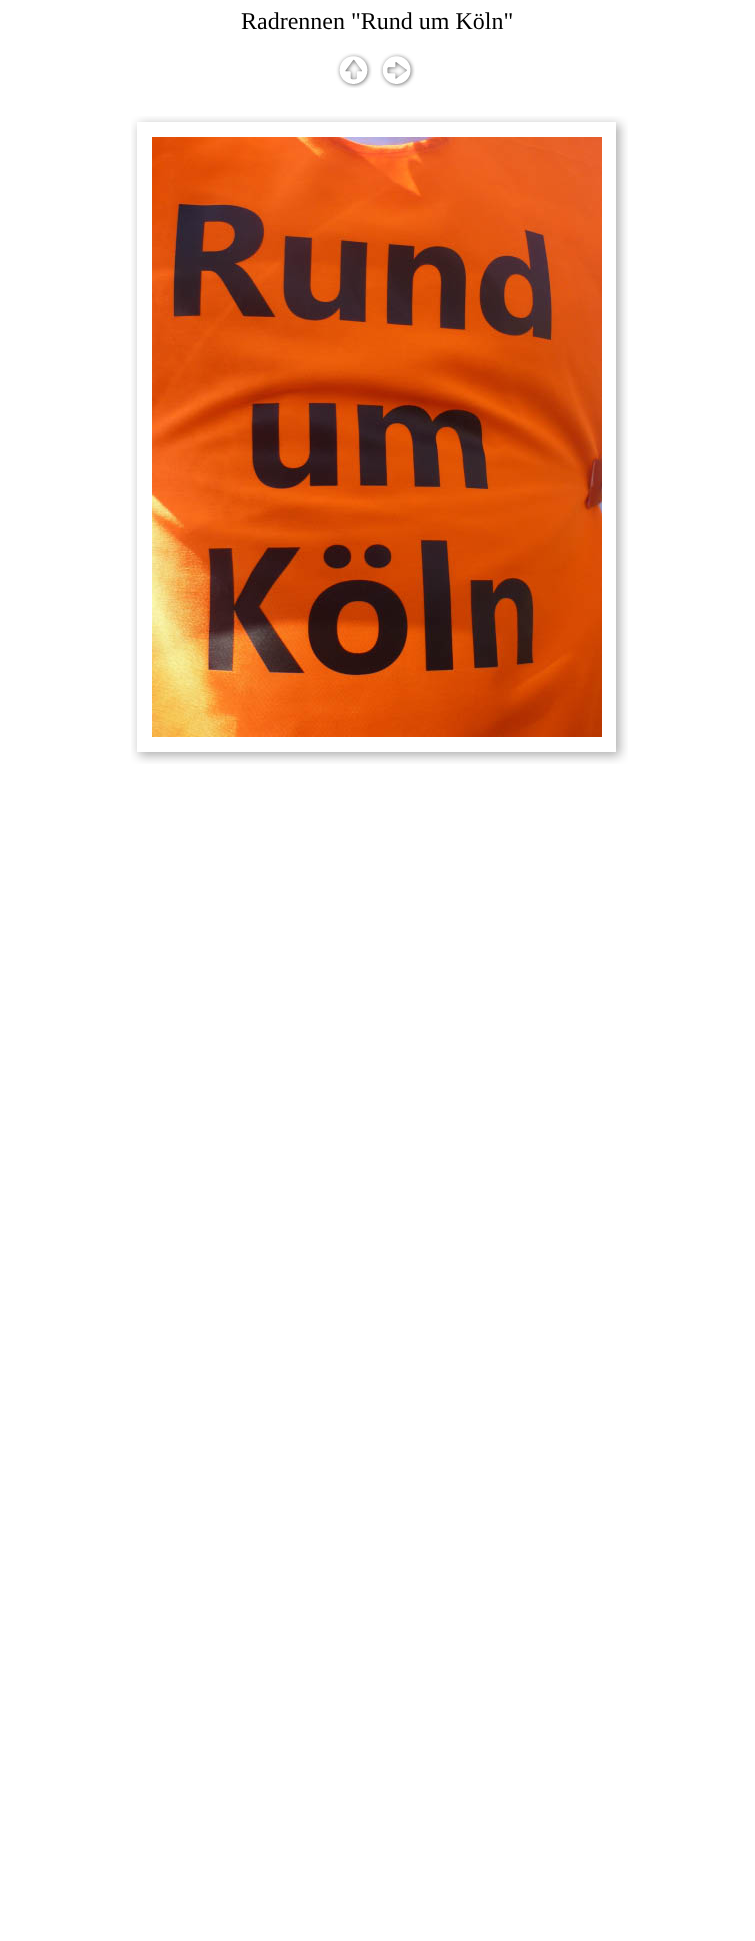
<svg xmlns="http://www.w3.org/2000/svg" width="755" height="1941">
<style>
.a{font:24px Liberation Serif;fill:#000}
</style>
<rect width="100%" height="100%" fill="#fff"/>
<image href="1.png" x="336" y="53" width="36" height="35"/>
<image href="2.png" x="380" y="53" width="35" height="35"/>
<image href="3.png" x="131" y="116" width="21" height="21"/>
<image href="4.png" x="152" y="116" width="450" height="6"/>
<image href="5.png" x="602" y="116" width="26" height="21"/>
<image href="6.png" x="131" y="137" width="6" height="600"/>
<image href="7.png" x="152" y="137" width="450" height="600"/>
<image href="8.png" x="616" y="137" width="12" height="600"/>
<image href="9.png" x="131" y="737" width="21" height="27"/>
<image href="10.png" x="152" y="752" width="450" height="12"/>
<image href="11.png" x="602" y="737" width="26" height="27"/>
<text class="a" x="241" y="29">Radrennen "Rund um Köln"</text>
</svg>
